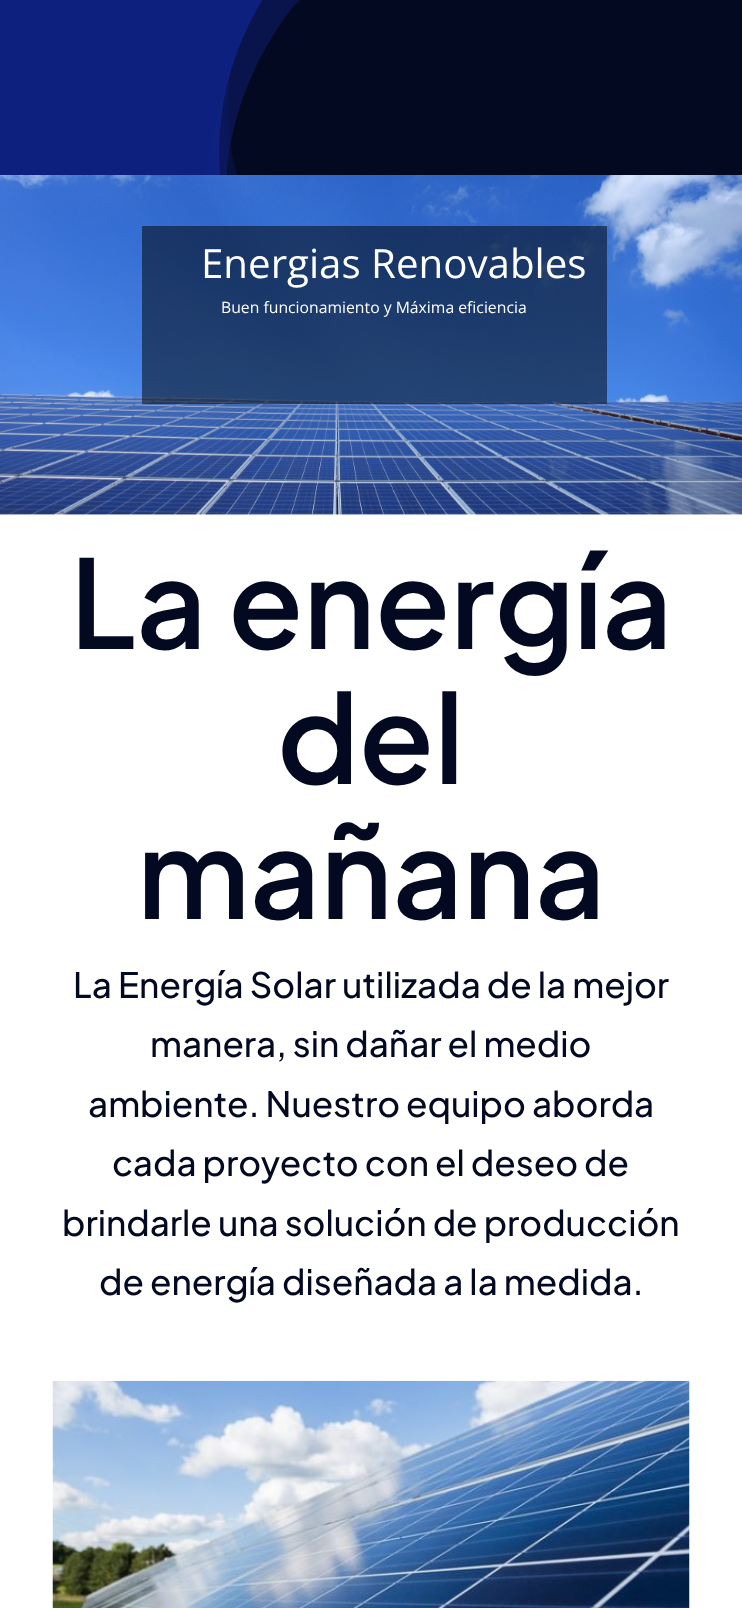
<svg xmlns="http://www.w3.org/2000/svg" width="742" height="1608">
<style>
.a{font:40.25px Open Sans;fill:#fff}
.b{font:15.75px Open Sans;fill:#fff}
.c{font:600 122.5px Plus Jakarta Sans;fill:#040922}
.d{font:500 35px Plus Jakarta Sans;fill:#040922}
</style>
<rect width="100%" height="100%" fill="#fff"/>
<path fill="#040922" d="M0 0h742v175H0z"/>
<image href="1.png" x="0" y="0" width="301" height="175"/>
<image href="2.png" x="0" y="175" width="742" height="340"/>
<path fill="#00000080" d="M142 226h465v178H142z"/>
<image href="3.png" x="52" y="1380" width="638" height="228"/>
<text class="a" x="201" y="278">Energias Renovables</text>
<text class="b" x="221" y="313">Buen funcionamiento y Máxima eficiencia</text>
<text class="c" x="70" y="649">La energía</text>
<text class="c" x="277" y="784">del</text>
<text class="c" x="137" y="919">mañana</text>
<text class="d" x="73" y="998">La Energía Solar utilizada de la mejor</text>
<text class="d" x="150" y="1057">manera, sin dañar el medio</text>
<text class="d" x="88" y="1117">ambiente. Nuestro equipo aborda</text>
<text class="d" x="112" y="1176">cada proyecto con el deseo de</text>
<text class="d" x="62" y="1236">brindarle una solución de producción</text>
<text class="d" x="99" y="1295">de energía diseñada a la medida.</text>
</svg>
